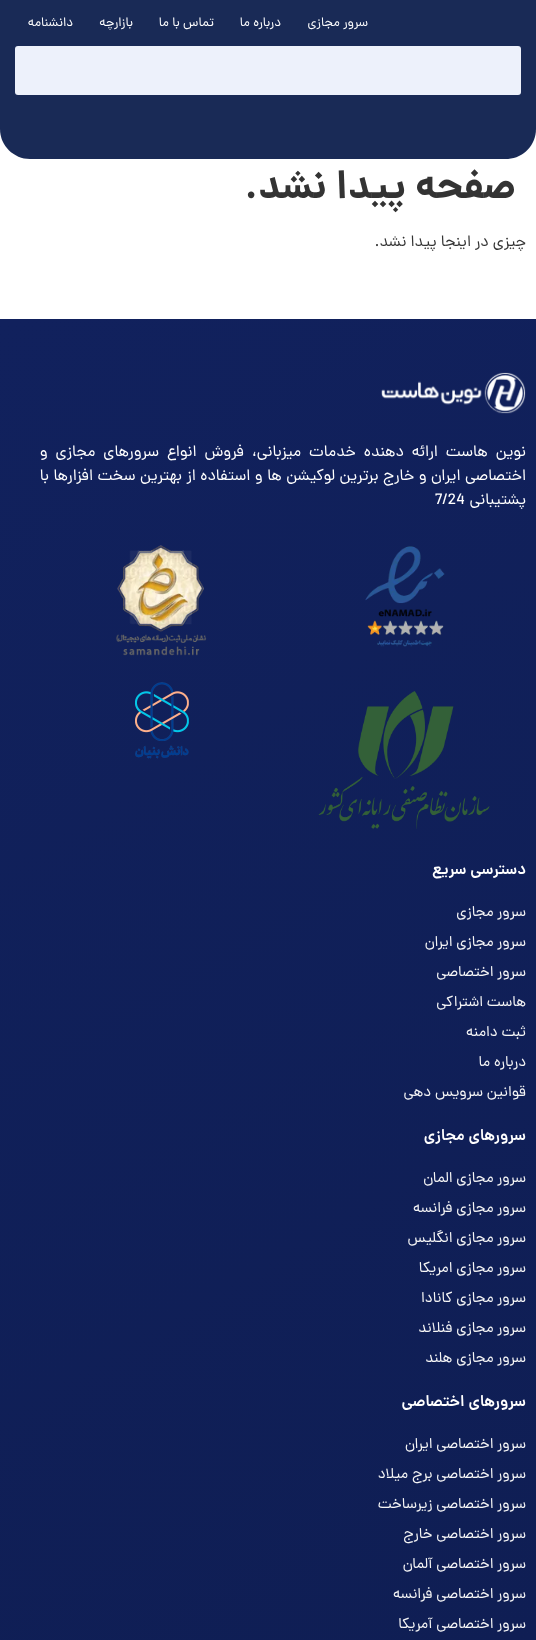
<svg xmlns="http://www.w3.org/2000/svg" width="536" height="1640">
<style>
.a{font:13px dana;direction:rtl;fill:#fff}
.b{font:bold 40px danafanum;direction:rtl;fill:#333}
.c{font:16px dana;direction:rtl;fill:#333}
.d{font:16px dana;direction:rtl;fill:#fff}
.e{font:16px dana;fill:#fff}
.f{font:600 16px danafanum;direction:rtl;fill:#fff}
.g{font:15px dana;direction:rtl;fill:#f6f6f6}
</style>
<defs>
<linearGradient id="g1" gradientUnits="userSpaceOnUse" x1="-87" y1="369" x2="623" y2="1601"><stop offset="0" stop-color="#11215d"/><stop offset="1" stop-color="#0f1e54"/></linearGradient>
</defs>
<rect width="100%" height="100%" fill="#fff"/>
<path fill="#192a56" d="M0 0h536v46H0z"/>
<path fill="#192a56" d="M0 46h536v83c0 16.5-13.5 30-30 30h-476c-16.5 0-30-13.5-30-30z"/>
<rect fill="#edf1fb" x="15" y="46" width="506" height="49" rx="3"/>
<path fill="url(#g1)" d="M0 319h536v1321H0z"/>
<image href="1.png" x="381" y="372" width="145" height="42"/>
<image href="2.png" x="365" y="546" width="80" height="101"/>
<image href="3.png" x="116" y="545" width="91" height="111"/>
<image href="4.png" x="318" y="691" width="172" height="138"/>
<image href="5.png" x="135" y="682" width="54" height="77"/>
<text class="a" x="368" y="26">سرور مجازی</text>
<text class="a" x="281" y="26">درباره ما</text>
<text class="a" x="214" y="26">تماس با ما</text>
<text class="a" x="133" y="26">بازارچه</text>
<text class="a" x="73" y="26">دانشنامه</text>
<text class="b" x="516" y="198">صفحه پیدا نشد.</text>
<text class="c" x="526" y="246">چیزی در اینجا پیدا نشد.</text>
<text class="d" x="526" y="456" word-spacing="3.9">نوین هاست ارائه دهنده خدمات میزبانی، فروش انواع سرورهای مجازی و</text>
<text class="d" x="526" y="480" word-spacing="0.4">اختصاصی ایران و خارج برترین لوکیشن ها و استفاده از بهترین سخت افزارها با</text>
<text class="d" x="526" y="504">پشتیبانی</text>
<text class="e" x="435" y="504">7/24</text>
<text class="f" x="526" y="874">دسترسی سریع</text>
<text class="g" x="526" y="916">سرور مجازی</text>
<text class="g" x="526" y="946">سرور مجازی ایران</text>
<text class="g" x="526" y="976">سرور اختصاصی</text>
<text class="g" x="526" y="1006">هاست اشتراکی</text>
<text class="g" x="526" y="1036">ثبت دامنه</text>
<text class="g" x="526" y="1066">درباره ما</text>
<text class="g" x="526" y="1096">قوانین سرویس دهی</text>
<text class="f" x="526" y="1140">سرورهای مجازی</text>
<text class="g" x="526" y="1182">سرور مجازی المان</text>
<text class="g" x="526" y="1212">سرور مجازی فرانسه</text>
<text class="g" x="526" y="1242">سرور مجازی انگلیس</text>
<text class="g" x="526" y="1272">سرور مجازی امریکا</text>
<text class="g" x="526" y="1302">سرور مجازی کانادا</text>
<text class="g" x="526" y="1332">سرور مجازی فنلاند</text>
<text class="g" x="526" y="1362">سرور مجازی هلند</text>
<text class="f" x="526" y="1406">سرورهای اختصاصی</text>
<text class="g" x="526" y="1448">سرور اختصاصی ایران</text>
<text class="g" x="526" y="1478">سرور اختصاصی برج میلاد</text>
<text class="g" x="526" y="1508">سرور اختصاصی زیرساخت</text>
<text class="g" x="526" y="1538">سرور اختصاصی خارج</text>
<text class="g" x="526" y="1568">سرور اختصاصی آلمان</text>
<text class="g" x="526" y="1598">سرور اختصاصی فرانسه</text>
<text class="g" x="526" y="1628">سرور اختصاصی آمریکا</text>
</svg>
